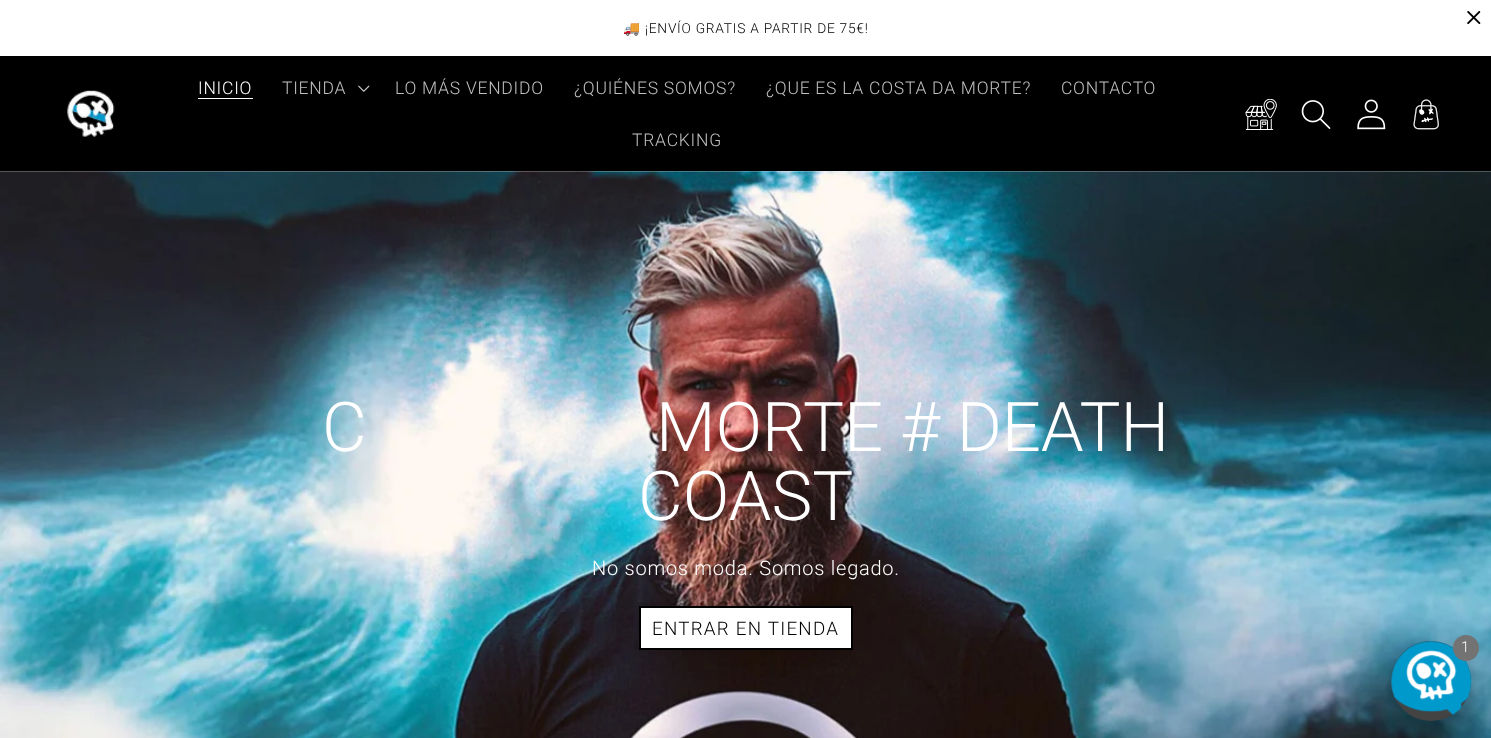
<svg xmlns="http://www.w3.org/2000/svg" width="1491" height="738">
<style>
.a{font:13.75px Noto Color Emoji;letter-spacing:0.75px;fill:#000}
.b{font:300 13.75px Roboto;letter-spacing:0.75px;fill:#000}
.c{font:300 17.5px Roboto;letter-spacing:0.75px;fill:#fff}
.d{font:300 17.5px Roboto;letter-spacing:0.75px;fill:#bfbfbf}
.e{font:300 68.75px Roboto;fill:#fff}
.f{font:300 20px Roboto;letter-spacing:0.75px;fill:#fff}
.g{font:300 18.75px Roboto;letter-spacing:1.25px;fill:#000}
.h{font:300 15px Roboto;letter-spacing:0.75px;fill:#fff}
</style>
<rect width="100%" height="100%" fill="#fff"/>
<image href="1.png" x="1467" y="11" width="14" height="14"/>
<path fill="#000" d="M0 56h1491v115H0z"/>
<image href="2.png" x="67" y="90" width="48" height="47"/>
<path fill="#fff" d="M198 98h55v1H198z"/>
<image href="3.png" x="358" y="85" width="12" height="7"/>
<image href="4.png" x="1245" y="99" width="32" height="31"/>
<image href="5.png" x="1301" y="100" width="30" height="29"/>
<image href="6.png" x="1357" y="99" width="29" height="31"/>
<image href="7.png" x="1413" y="99" width="26" height="31"/>
<image href="8.png" x="0" y="171" width="1491" height="567"/>
<path fill="#0000001a" filter="blur(6px)" d="M629 613h212v42H629z"/>
<path fill="#fff" d="M641 608h210v40H641z"/>
<path fill="none" stroke="#000" stroke-width="2" d="M640 607h212v42H640z"/>
<rect fill="#00000040" filter="blur(7.5px)" x="1391" y="649" width="80" height="80" rx="40"/>
<circle fill="#434343" cx="1431" cy="681" r="40"/>
<image href="9.png" x="1391" y="641" width="81" height="75"/>
<circle fill="#737373" cx="1466" cy="648" r="13"/>
<text class="a" x="623" y="33">🚚</text>
<text class="b" x="645" y="33">¡ENVÍO GRATIS A PARTIR DE 75€!</text>
<text class="c" x="198" y="94">INICIO</text>
<text class="d" x="282" y="94">TIENDA</text>
<text class="d" x="395" y="94">LO MÁS VENDIDO</text>
<text class="d" x="574" y="94">¿QUIÉNES SOMOS?</text>
<text class="d" x="766" y="94">¿QUE ES LA COSTA DA MORTE?</text>
<text class="d" x="1061" y="94">CONTACTO</text>
<text class="d" x="632" y="146">TRACKING</text>
<text class="e" x="322" y="451">C</text>
<text class="e" x="656" y="451">MORTE # DEATH</text>
<text class="e" x="638" y="520">COAST</text>
<text class="f" x="592" y="575">No somos moda. Somos legado.</text>
<text class="g" x="652" y="635">ENTRAR EN TIENDA</text>
<text class="h" x="1461" y="652">1</text>
</svg>
